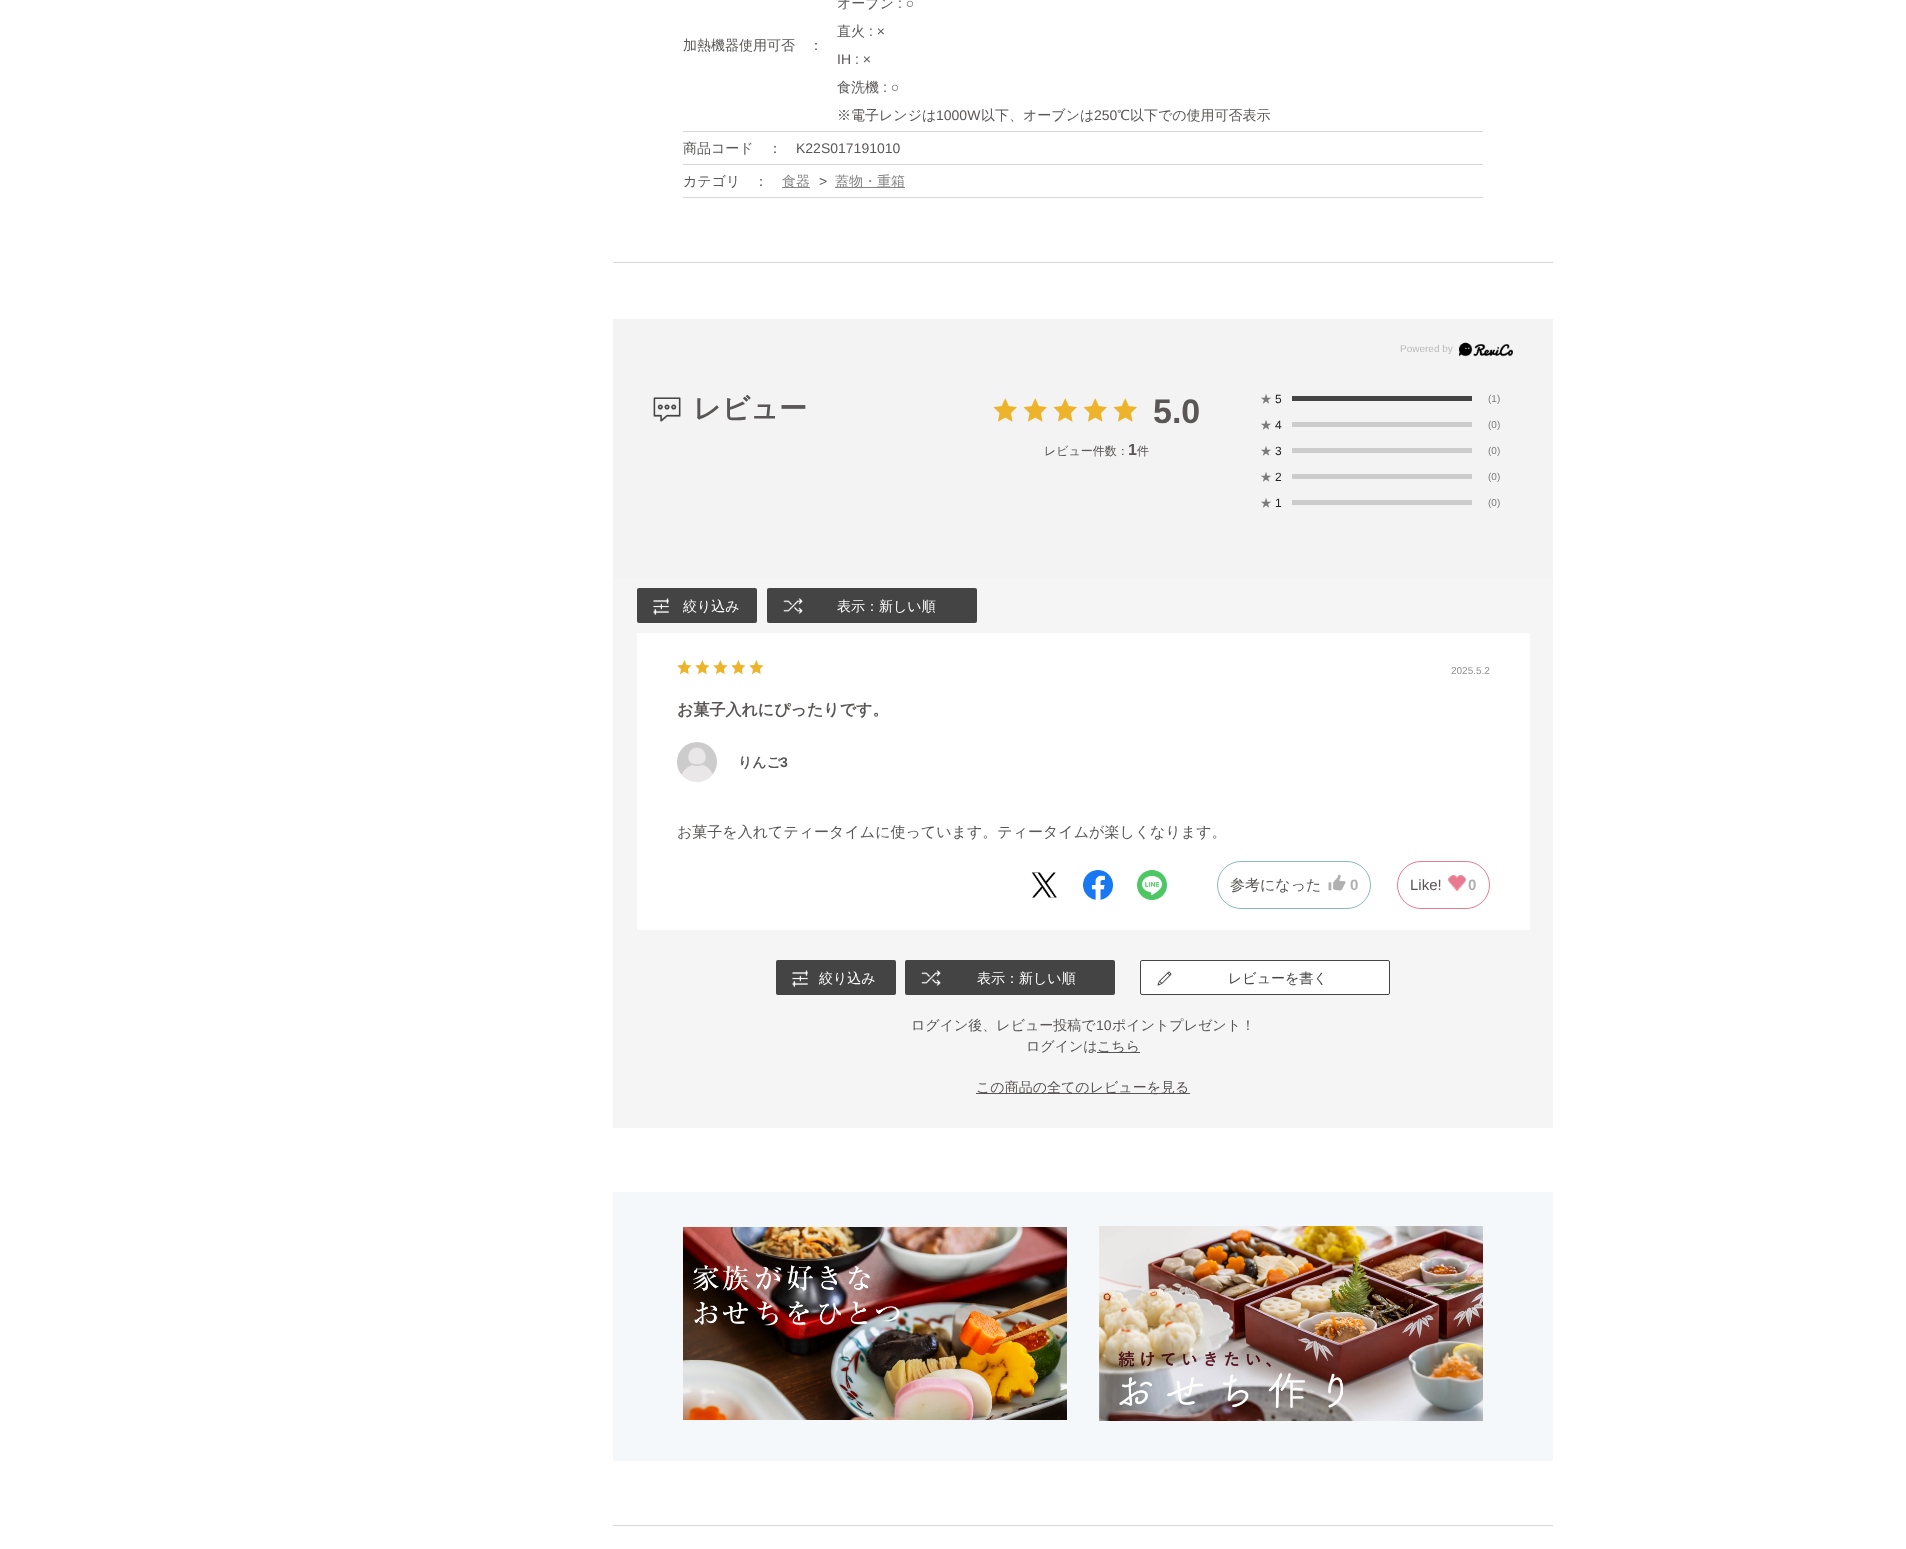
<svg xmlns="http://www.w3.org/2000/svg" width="1906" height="1549">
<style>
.a{font:500 14px WenQuanYi Zen Hei;fill:#595655}
.b{font:14px Liberation Sans;fill:#595655}
.c{font:500 14px WenQuanYi Zen Hei;fill:#888585}
.d{font:10px Liberation Sans;fill:#bbb}
.e{font:bold 28px WenQuanYi Zen Hei;fill:#595655}
.f{font:bold 34px Liberation Sans;fill:#595655}
.g{font:500 12px WenQuanYi Zen Hei;fill:#595655}
.h{font:bold 16px Liberation Sans;fill:#595655}
.i{font:500 12px WenQuanYi Zen Hei;fill:#7b7b7b}
.j{font:12px Liberation Sans;fill:#222}
.k{font:10px Liberation Sans;fill:#7b7b7b}
.l{font:500 14px WenQuanYi Zen Hei;fill:#fff}
.m{font:10px Liberation Sans;fill:#909090}
.n{font:bold 16px WenQuanYi Zen Hei;fill:#595655}
.o{font:bold 14px WenQuanYi Zen Hei;fill:#595655}
.p{font:bold 14px Liberation Sans;fill:#595655}
.q{font:500 15px WenQuanYi Zen Hei;fill:#595655}
.r{font:bold 15px Liberation Sans;fill:#b0b0b0}
.s{font:15px Liberation Sans;fill:#595655}
.t{font:500 14px WenQuanYi Zen Hei;fill:#444}
</style>
<rect width="100%" height="100%" fill="#fff"/>
<path fill="#d7d7d6" d="M683 131h800v1H683z"/>
<path fill="#d7d7d6" d="M683 164h800v1H683z"/>
<path fill="#d7d7d6" d="M683 197h800v1H683z"/>
<path fill="#888585" d="M782 187h28v1H782z"/>
<path fill="#888585" d="M835 187h70v1H835z"/>
<path fill="#d7d7d6" d="M613 262h940v1H613z"/>
<path fill="#f3f3f3" d="M613 319h940v259H613z"/>
<image href="1.png" x="1459" y="342" width="54" height="15"/>
<image href="2.png" x="653" y="397" width="28" height="25"/>
<image href="3.png" x="993" y="398" width="144" height="24"/>
<path fill="#444" d="M1292 396h180v5H1292z"/>
<path fill="#ccc" d="M1292 422h180v5H1292z"/>
<path fill="#ccc" d="M1292 448h180v5H1292z"/>
<path fill="#ccc" d="M1292 474h180v5H1292z"/>
<path fill="#ccc" d="M1292 500h180v5H1292z"/>
<path fill="#f5f5f5" d="M613 578h940v550H613z"/>
<rect fill="#444" x="637" y="588" width="120" height="35" rx="2"/>
<image href="4.png" x="653" y="598" width="16" height="17"/>
<rect fill="#444" x="767" y="588" width="210" height="35" rx="2"/>
<image href="5.png" x="783" y="598" width="20" height="16"/>
<path fill="#fff" d="M637 633h893v297H637z"/>
<image href="6.png" x="677" y="660" width="87" height="15"/>
<image href="7.png" x="677" y="742" width="40" height="40"/>
<image href="8.png" x="1031" y="872" width="26" height="26"/>
<image href="9.png" x="1083" y="870" width="30" height="30"/>
<image href="10.png" x="1137" y="870" width="30" height="30"/>
<rect fill="none" stroke="#8bbabb" x="1217.5" y="861.5" width="153" height="47" rx="23.5"/>
<image href="11.png" x="1328" y="874" width="18" height="17"/>
<rect fill="none" stroke="#e87a90" x="1397.5" y="861.5" width="92" height="47" rx="23.5"/>
<image href="12.png" x="1448" y="875" width="18" height="16"/>
<rect fill="#444" x="776" y="960" width="120" height="35" rx="2"/>
<image href="4.png" x="792" y="970" width="16" height="17"/>
<rect fill="#444" x="905" y="960" width="210" height="35" rx="2"/>
<image href="5.png" x="921" y="970" width="20" height="16"/>
<rect fill="#fff" x="1140" y="960" width="250" height="35" rx="2"/>
<image href="13.png" x="1157" y="971" width="15" height="15"/>
<rect fill="none" stroke="#444" x="1140.5" y="960.5" width="249" height="34" rx="1.5"/>
<path fill="#595655" d="M1097 1052h43v1H1097z"/>
<path fill="#595655" d="M976 1093h214v1H976z"/>
<path fill="#f4f8fa" d="M613 1192h940v269H613z"/>
<image href="14.png" x="683" y="1227" width="384" height="193"/>
<image href="15.png" x="1099" y="1226" width="384" height="195"/>
<path fill="#d7d7d6" d="M613 1525h940v1H613z"/>
<text class="a" x="683" y="50">加熱機器使用可否</text>
<text class="a" x="809" y="50">：</text>
<text class="a" x="837" y="8">オーブン</text>
<text class="b" x="898" y="8">: ○</text>
<text class="a" x="837" y="36">直火</text>
<text class="b" x="869" y="36">: ×</text>
<text class="b" x="837" y="64">IH : ×</text>
<text class="a" x="837" y="92">食洗機</text>
<text class="b" x="883" y="92">: ○</text>
<text class="a" x="837" y="120">※電子レンジは</text>
<text class="b" x="936" y="120">1000W</text>
<text class="a" x="981" y="120">以下、オーブンは</text>
<text class="b" x="1094" y="120">250</text>
<text class="a" x="1117" y="120">℃以下での使用可否表示</text>
<text class="a" x="683" y="153">商品コード</text>
<text class="a" x="768" y="153">：</text>
<text class="b" x="796" y="153">K22S017191010</text>
<text class="a" x="683" y="186">カテゴリ</text>
<text class="a" x="754" y="186">：</text>
<text class="c" x="782" y="186">食器</text>
<text class="b" x="819" y="186">&gt;</text>
<text class="c" x="835" y="186">蓋物・重箱</text>
<text class="d" x="1400" y="352">Powered by</text>
<text class="e" x="693" y="418">レビュー</text>
<text class="f" x="1153" y="423">5.0</text>
<text class="g" x="1044" y="455">レビュー件数：</text>
<text class="h" x="1128" y="455">1</text>
<text class="g" x="1137" y="455">件</text>
<text class="i" x="1260" y="403">★</text>
<text class="j" x="1275" y="403">5</text>
<text class="k" x="1488" y="402">(1)</text>
<text class="i" x="1260" y="429">★</text>
<text class="j" x="1275" y="429">4</text>
<text class="k" x="1488" y="428">(0)</text>
<text class="i" x="1260" y="455">★</text>
<text class="j" x="1275" y="455">3</text>
<text class="k" x="1488" y="454">(0)</text>
<text class="i" x="1260" y="481">★</text>
<text class="j" x="1275" y="481">2</text>
<text class="k" x="1488" y="480">(0)</text>
<text class="i" x="1260" y="507">★</text>
<text class="j" x="1275" y="507">1</text>
<text class="k" x="1488" y="506">(0)</text>
<text class="l" x="683" y="611">絞り込み</text>
<text class="l" x="837" y="611">表示：新しい順</text>
<text class="m" x="1451" y="674">2025.5.2</text>
<text class="n" x="677" y="715">お菓子入れにぴったりです。</text>
<text class="o" x="738" y="767">りんご</text>
<text class="p" x="780" y="767">3</text>
<text class="q" x="677" y="837">お菓子を入れてティータイムに使っています。ティータイムが楽しくなります。</text>
<text class="q" x="1230" y="890">参考になった</text>
<text class="r" x="1350" y="890">0</text>
<text class="s" x="1410" y="890">Like!</text>
<text class="r" x="1468" y="890">0</text>
<text class="l" x="819" y="983">絞り込み</text>
<text class="l" x="977" y="983">表示：新しい順</text>
<text class="t" x="1228" y="983">レビューを書く</text>
<text class="a" x="911" y="1030">ログイン後、レビュー投稿で</text>
<text class="b" x="1096" y="1030">10</text>
<text class="a" x="1112" y="1030">ポイントプレゼント！</text>
<text class="a" x="1026" y="1051">ログインは</text>
<text class="a" x="1097" y="1051">こちら</text>
<text class="a" x="976" y="1092">この商品の全てのレビューを見る</text>
</svg>
